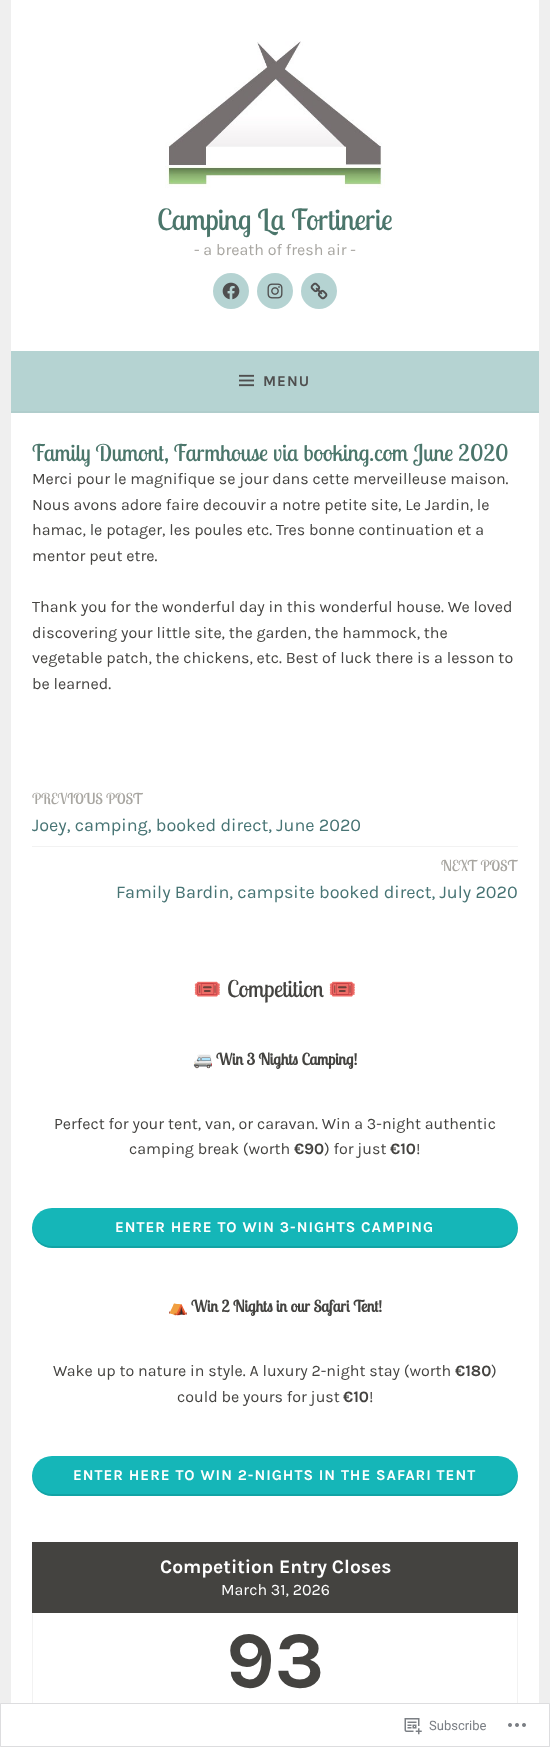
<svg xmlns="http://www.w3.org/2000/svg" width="550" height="1747">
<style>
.a{font:29px Lobster Two;fill:#4b766b}
.b{font:16px Karla;fill:#a8a6a1}
.c{font:bold 15px Karla;letter-spacing:1px;fill:#4f4f4f}
.d{font:23px Lobster Two;fill:#4b766b}
.e{font:16px Karla;fill:#444340}
.f{font:15px Lobster Two;fill:#a8a6a1}
.g{font:18px Karla;fill:#477474}
.h{font:23px Noto Color Emoji;fill:#444340}
.i{font:23px Lobster Two;fill:#444340}
.j{font:16px Noto Color Emoji;fill:#444340}
.k{font:bold 16px Lobster Two;fill:#444340}
.l{font:bold 16px Karla;fill:#444340}
.m{font:bold 15px Karla;letter-spacing:1px;fill:#fff}
.n{font:bold 19.25px Karla;fill:#fff}
.o{font:16px Karla;fill:#fff}
.p{font:bold 80px Karla;fill:#444340}
.q{font:13px Roboto;fill:#7b7f85}
</style>
<rect width="100%" height="100%" fill="#efefef"/>
<path fill="#fff" d="M1 1704h548v42H1z"/>
<path fill="#fff" d="M11 0h528v351H11z"/>
<image href="1.png" x="165" y="41" width="220" height="147"/>
<circle fill="#b5d3d2" cx="231" cy="291" r="18"/>
<image href="2.png" x="222" y="282" width="18" height="18"/>
<circle fill="#b5d3d2" cx="275" cy="291" r="18"/>
<image href="3.png" x="267" y="283" width="16" height="16"/>
<circle fill="#b5d3d2" cx="319" cy="291" r="18"/>
<image href="4.png" x="310" y="282" width="18" height="18"/>
<path fill="#b5d3d2" d="M11 351h528v60H11z"/>
<path fill="#b0cdcc" d="M11 411h528v2H11z"/>
<image href="5.png" x="239" y="374" width="15" height="13"/>
<path fill="#fff" d="M11 413h528v1290H11z"/>
<path fill="#f2f2f2" d="M32 846h486v1H32z"/>
<rect fill="#15b6b8" x="32" y="1208" width="486" height="40" rx="20"/>
<path fill="#0000001a" d="M32 1227c-1 11 9 21 20 21h446c11 0 21-10 20-21c-1 11-9 19-20 19h-446c-11 0-19-8-20-19z"/>
<rect fill="#15b6b8" x="32" y="1456" width="486" height="40" rx="20"/>
<path fill="#0000001a" d="M32 1475c-1 11 9 21 20 21h446c11 0 21-10 20-21c-1 11-9 19-20 19h-446c-11 0-19-8-20-19z"/>
<path fill="#444340" d="M32 1542h486v71H32z"/>
<path fill="#f2f2f2" d="M517 1613h1v90H517z"/>
<path fill="#fff" d="M517 1703h1v44H517z"/>
<path fill="#f2f2f2" d="M32 1613h1v90H32z"/>
<path fill="#fff" d="M32 1703h1v44H32z"/>
<path fill="none" stroke="#dddddf" d="M0.5 1703.5h549v43H0.5z"/>
<image href="6.png" x="404" y="1718" width="18" height="17"/>
<image href="7.png" x="508" y="1723" width="18" height="4"/>
<text class="a" x="157" y="230">Camping La Fortinerie</text>
<text class="b" x="194" y="255">- a breath of fresh air -</text>
<text class="c" x="263" y="386">MENU</text>
<text class="d" x="32" y="461">Family Dumont, Farmhouse via booking.com June 2020</text>
<text class="e" x="32" y="484">Merci pour le magnifique se jour dans cette merveilleuse maison.</text>
<text class="e" x="32" y="510">Nous avons adore faire decouvir a notre petite site, Le Jardin, le</text>
<text class="e" x="32" y="535">hamac, le potager, les poules etc. Tres bonne continuation et a</text>
<text class="e" x="32" y="561">mentor peut etre.</text>
<text class="e" x="32" y="612">Thank you for the wonderful day in this wonderful house. We loved</text>
<text class="e" x="32" y="638">discovering your little site, the garden, the hammock, the</text>
<text class="e" x="32" y="663">vegetable patch, the chickens, etc. Best of luck there is a lesson to</text>
<text class="e" x="32" y="689">be learned.</text>
<text class="f" x="32" y="804">PREVIOUS POST</text>
<text class="g" x="32" y="831">Joey, camping, booked direct, June 2020</text>
<text class="f" x="441" y="871">NEXT POST</text>
<text class="g" x="116" y="898">Family Bardin, campsite booked direct, July 2020</text>
<text class="h" x="193" y="997">🎟️</text>
<text class="i" x="227" y="997">Competition</text>
<text class="h" x="328" y="997">🎟️</text>
<text class="j" x="193" y="1065">🚐</text>
<text class="k" x="216" y="1065">Win 3 Nights Camping!</text>
<text class="e" x="54" y="1129">Perfect for your tent, van, or caravan. Win a 3-night authentic</text>
<text class="e" x="129" y="1154">camping break (worth</text>
<text class="l" x="294" y="1154">€90</text>
<text class="e" x="324" y="1154">) for just</text>
<text class="l" x="390" y="1154">€10</text>
<text class="e" x="416" y="1154">!</text>
<text class="m" x="115" y="1232">ENTER HERE TO WIN 3-NIGHTS CAMPING</text>
<text class="j" x="168" y="1312">⛺</text>
<text class="k" x="191" y="1312">Win 2 Nights in our Safari Tent!</text>
<text class="e" x="53" y="1376">Wake up to nature in style. A luxury 2-night stay (worth</text>
<text class="l" x="455" y="1376">€180</text>
<text class="e" x="491" y="1376">)</text>
<text class="e" x="177" y="1402">could be yours for just</text>
<text class="l" x="343" y="1402">€10</text>
<text class="e" x="369" y="1402">!</text>
<text class="m" x="73" y="1480">ENTER HERE TO WIN 2-NIGHTS IN THE SAFARI TENT</text>
<text class="n" x="160" y="1573">Competition Entry Closes</text>
<text class="o" x="221" y="1595">March 31, 2026</text>
<text class="p" x="226" y="1687">93</text>
<text class="q" x="429" y="1730">Subscribe</text>
</svg>
